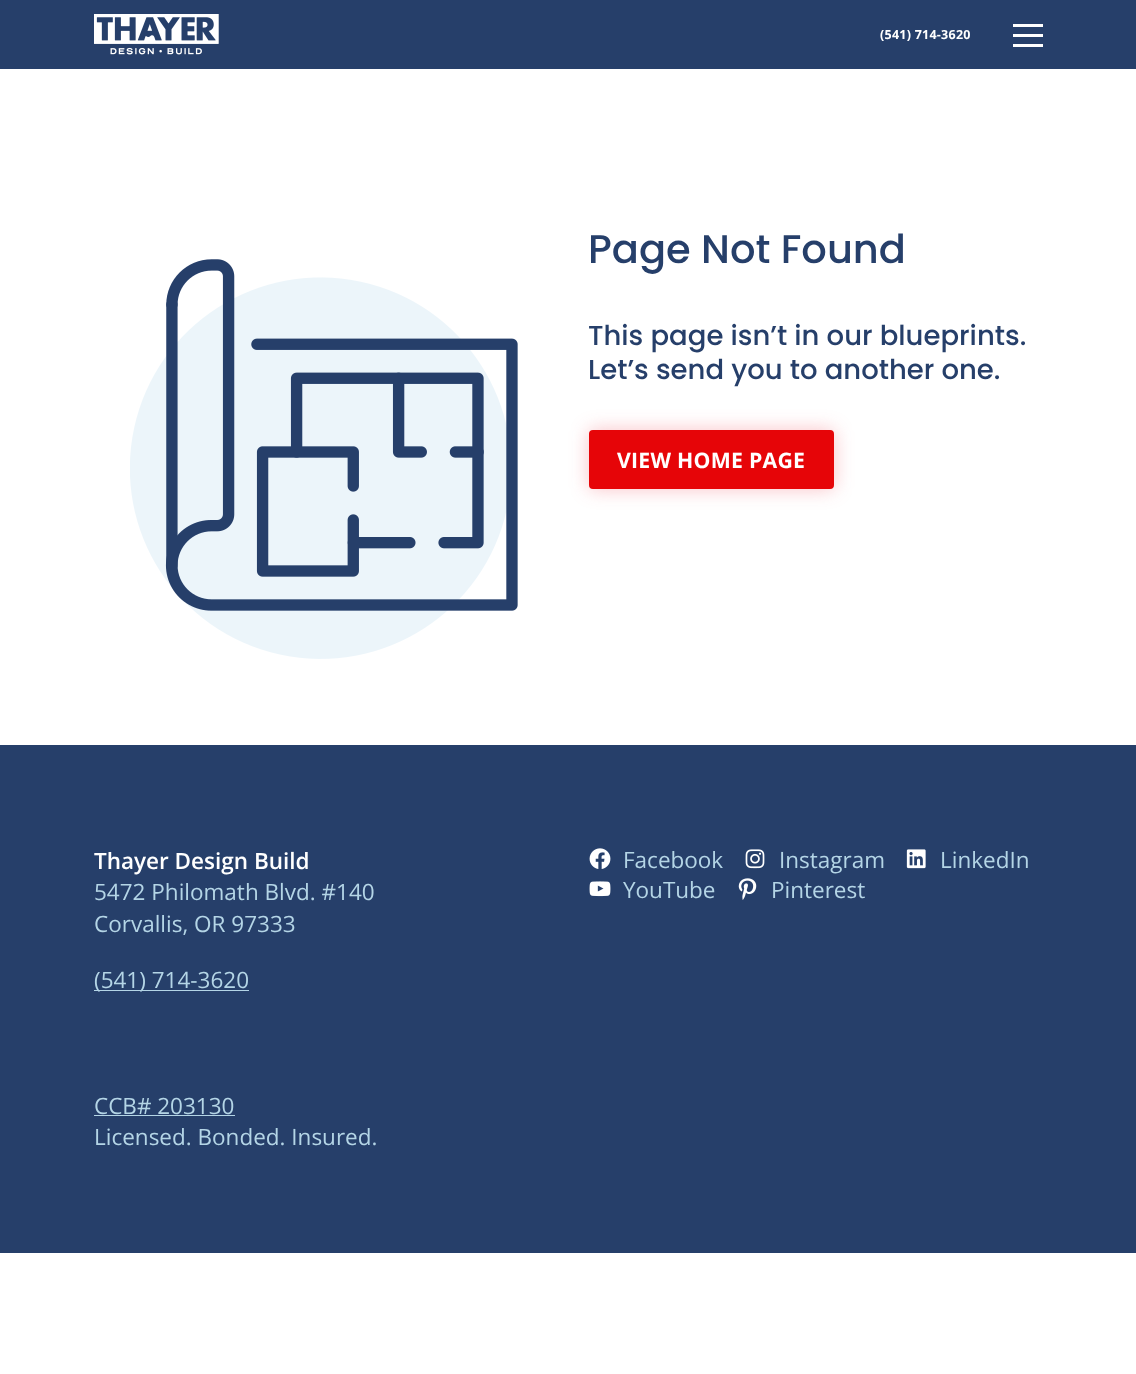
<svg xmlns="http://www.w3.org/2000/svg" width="1136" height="1374">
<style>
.a{font:bold 12.5px Open Sans;letter-spacing:0.25px;fill:#fff}
.b{font:500 40px Poppins;fill:#263f6a}
.c{font:500 27.5px Poppins;fill:#263f6a}
.d{font:bold 21.25px Open Sans;letter-spacing:0.25px;fill:#fff}
.e{font:600 22.5px Open Sans;fill:#fff}
.f{font:22.5px Open Sans;fill:#b4d5e6}
</style>
<rect width="100%" height="100%" fill="#fff"/>
<path fill="#263f6a" d="M0 0h1136v69H0z"/>
<image href="1.png" x="94" y="14" width="125" height="41"/>
<path fill="#fff" d="M1013 24h30v3H1013z"/>
<path fill="#fff" d="M1013 34h30v3H1013z"/>
<path fill="#fff" d="M1013 44h30v3H1013z"/>
<image href="2.png" x="130" y="259" width="388" height="400"/>
<rect fill="#ed29394a" filter="blur(9.5px)" x="589" y="430" width="245" height="59" rx="4"/>
<rect fill="#e60508" stroke="#e60508" stroke-width="4" x="591" y="432" width="241" height="55" rx="2"/>
<path fill="#263f6a" d="M0 745h1136v508H0z"/>
<path fill="#b4d5e6" d="M94 990h155v1H94z"/>
<image href="3.png" x="589" y="848" width="22" height="21"/>
<image href="4.png" x="745" y="849" width="20" height="20"/>
<image href="5.png" x="906" y="849" width="20" height="20"/>
<image href="6.png" x="589" y="881" width="22" height="16"/>
<image href="7.png" x="738" y="878" width="19" height="22"/>
<path fill="#b4d5e6" d="M94 1115h141v1H94z"/>
<text class="a" x="880" y="39">(541) 714-3620</text>
<text class="b" x="588" y="263">Page Not Found</text>
<text class="c" x="588" y="345">This page isn’t in our blueprints.</text>
<text class="c" x="588" y="379">Let’s send you to another one.</text>
<text class="d" x="617" y="468">VIEW HOME PAGE</text>
<text class="e" x="94" y="869">Thayer Design Build</text>
<text class="f" x="94" y="900">5472 Philomath Blvd. #140</text>
<text class="f" x="94" y="932">Corvallis, OR 97333</text>
<text class="f" x="94" y="988">(541) 714-3620</text>
<text class="f" x="623" y="868">Facebook</text>
<text class="f" x="779" y="868">Instagram</text>
<text class="f" x="940" y="868">LinkedIn</text>
<text class="f" x="623" y="898">YouTube</text>
<text class="f" x="771" y="898">Pinterest</text>
<text class="f" x="94" y="1114">CCB# 203130</text>
<text class="f" x="94" y="1145">Licensed. Bonded. Insured.</text>
</svg>
